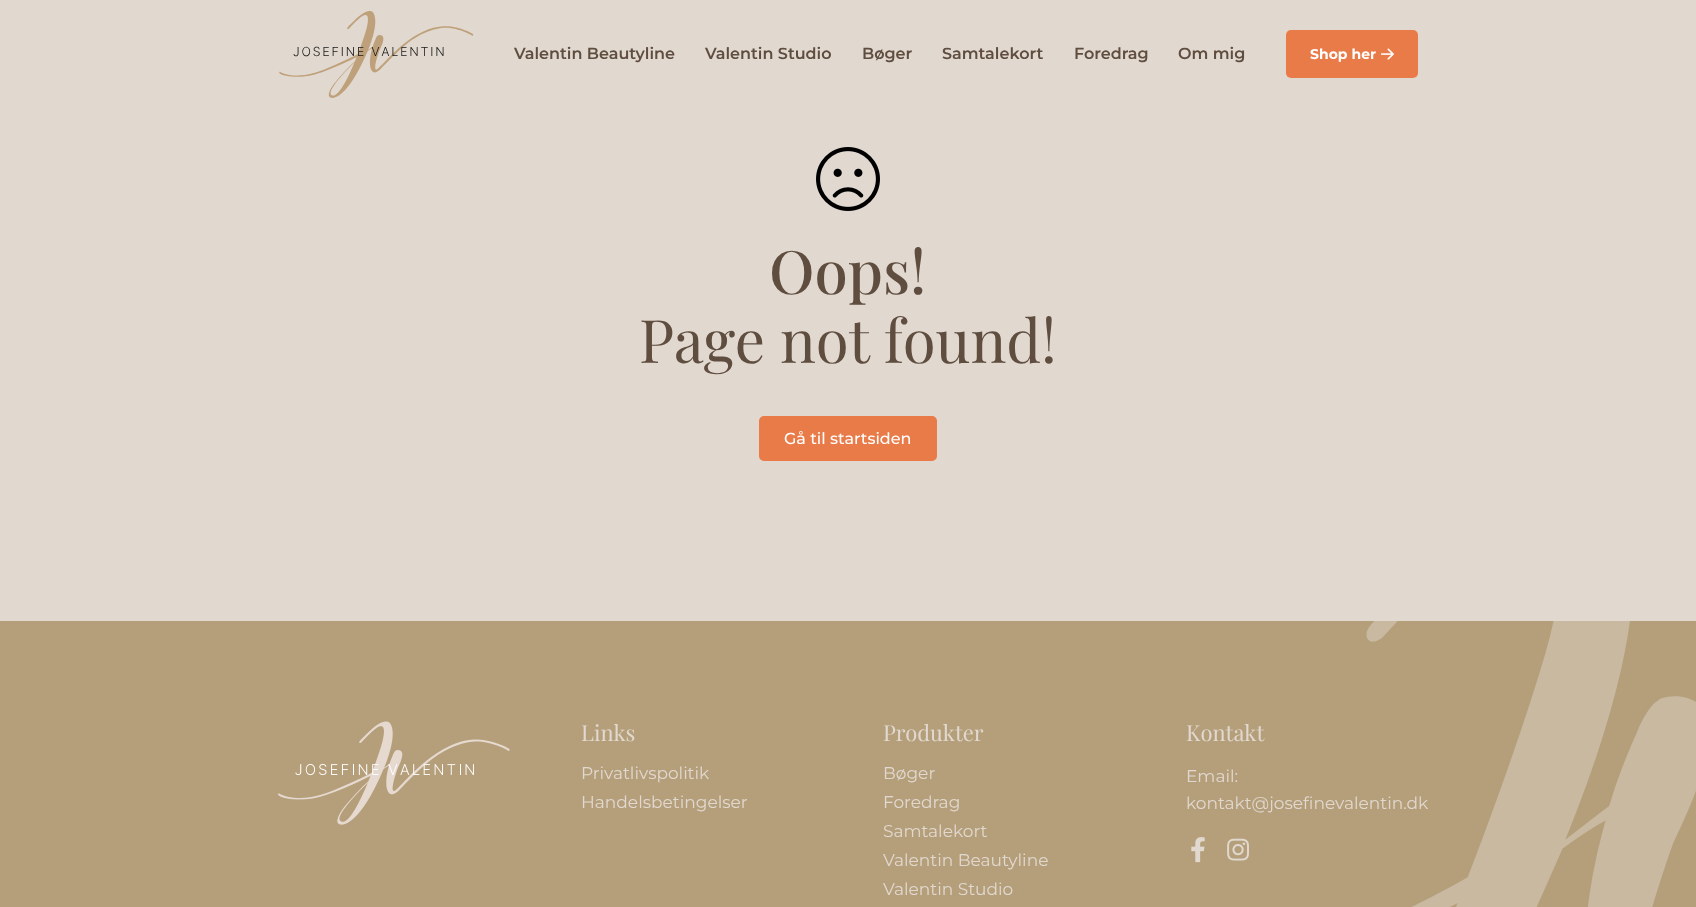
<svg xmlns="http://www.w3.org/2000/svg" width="1696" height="907">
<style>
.a{font:600 16px Montserrat;fill:#5f4d3f}
.b{font:bold 14px Montserrat;fill:#fff}
.c{font:500 60px Playfair Display;fill:#5f4d3f}
.d{font:60px Playfair Display;fill:#5f4d3f}
.e{font:500 16px Montserrat;fill:#fff}
.f{font:22px Playfair Display;fill:#e1d8cf}
.g{font:17px Montserrat;fill:#e1d8cf}
</style>
<rect width="100%" height="100%" fill="#e1d8cf"/>
<image href="1.png" x="279" y="11" width="195" height="87"/>
<rect fill="#e97b49" x="1286" y="30" width="132" height="48" rx="5"/>
<image href="2.png" x="1380" y="48" width="14" height="12"/>
<image href="3.png" x="816" y="147" width="64" height="64"/>
<rect fill="#e97b49" x="759" y="416" width="178" height="45" rx="5"/>
<path fill="#b59f7a" d="M0 621h1696v286H0z"/>
<image href="4.png" x="1366" y="621" width="330" height="286"/>
<image href="5.png" x="278" y="721" width="232" height="104"/>
<image href="6.png" x="1191" y="837" width="14" height="26"/>
<image href="7.png" x="1227" y="838" width="22" height="23"/>
<text class="a" x="514" y="59">Valentin Beautyline</text>
<text class="a" x="705" y="59">Valentin Studio</text>
<text class="a" x="862" y="59">Bøger</text>
<text class="a" x="942" y="59">Samtalekort</text>
<text class="a" x="1074" y="59">Foredrag</text>
<text class="a" x="1178" y="59">Om mig</text>
<text class="b" x="1310" y="59">Shop her</text>
<text class="c" x="769" y="294">Oops!</text>
<text class="d" x="639" y="363">Page not found!</text>
<text class="e" x="784" y="444">Gå til startsiden</text>
<text class="f" x="581" y="741">Links</text>
<text class="g" x="581" y="779">Privatlivspolitik</text>
<text class="g" x="581" y="808">Handelsbetingelser</text>
<text class="f" x="883" y="741">Produkter</text>
<text class="g" x="883" y="779">Bøger</text>
<text class="g" x="883" y="808">Foredrag</text>
<text class="g" x="883" y="837">Samtalekort</text>
<text class="g" x="883" y="866">Valentin Beautyline</text>
<text class="g" x="883" y="895">Valentin Studio</text>
<text class="f" x="1186" y="741">Kontakt</text>
<text class="g" x="1186" y="782">Email:</text>
<text class="g" x="1186" y="809">kontakt@josefinevalentin.dk</text>
</svg>
